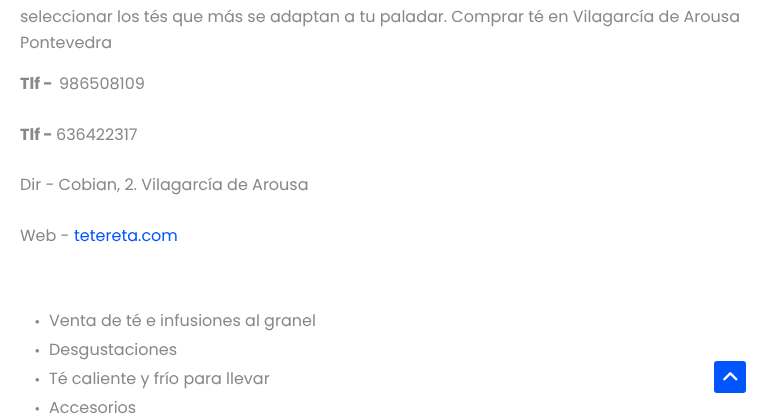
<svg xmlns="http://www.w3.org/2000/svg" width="771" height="418">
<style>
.a{font:16px Poppins;fill:#888}
.b{font:bold 16px Poppins;fill:#888}
.c{font:16px Poppins;fill:#05f}
.d{font:bold 13px Liberation Serif;fill:#888}
</style>
<rect width="100%" height="100%" fill="#fff"/>
<rect fill="#05f" x="714" y="361" width="32" height="32" rx="3"/>
<image href="1.png" x="723" y="372" width="15" height="9"/>
<text class="a" x="20" y="22">seleccionar los tés que más se adaptan a tu paladar. Comprar té en Vilagarcía de Arousa</text>
<text class="a" x="20" y="48">Pontevedra</text>
<text class="b" x="20" y="89">Tlf -</text>
<text class="a" x="59" y="89">986508109</text>
<text class="b" x="20" y="140">Tlf -</text>
<text class="a" x="56" y="140">636422317</text>
<text class="a" x="20" y="190">Dir - Cobian, 2. Vilagarcía de Arousa</text>
<text class="a" x="20" y="241">Web -</text>
<text class="c" x="74" y="241">tetereta.com</text>
<text class="d" x="35" y="326">•</text>
<text class="a" x="49" y="326">Venta de té e infusiones al granel</text>
<text class="d" x="35" y="355">•</text>
<text class="a" x="49" y="355">Desgustaciones</text>
<text class="d" x="35" y="384">•</text>
<text class="a" x="49" y="384">Té caliente y frío para llevar</text>
<text class="d" x="35" y="413">•</text>
<text class="a" x="49" y="413">Accesorios</text>
</svg>
